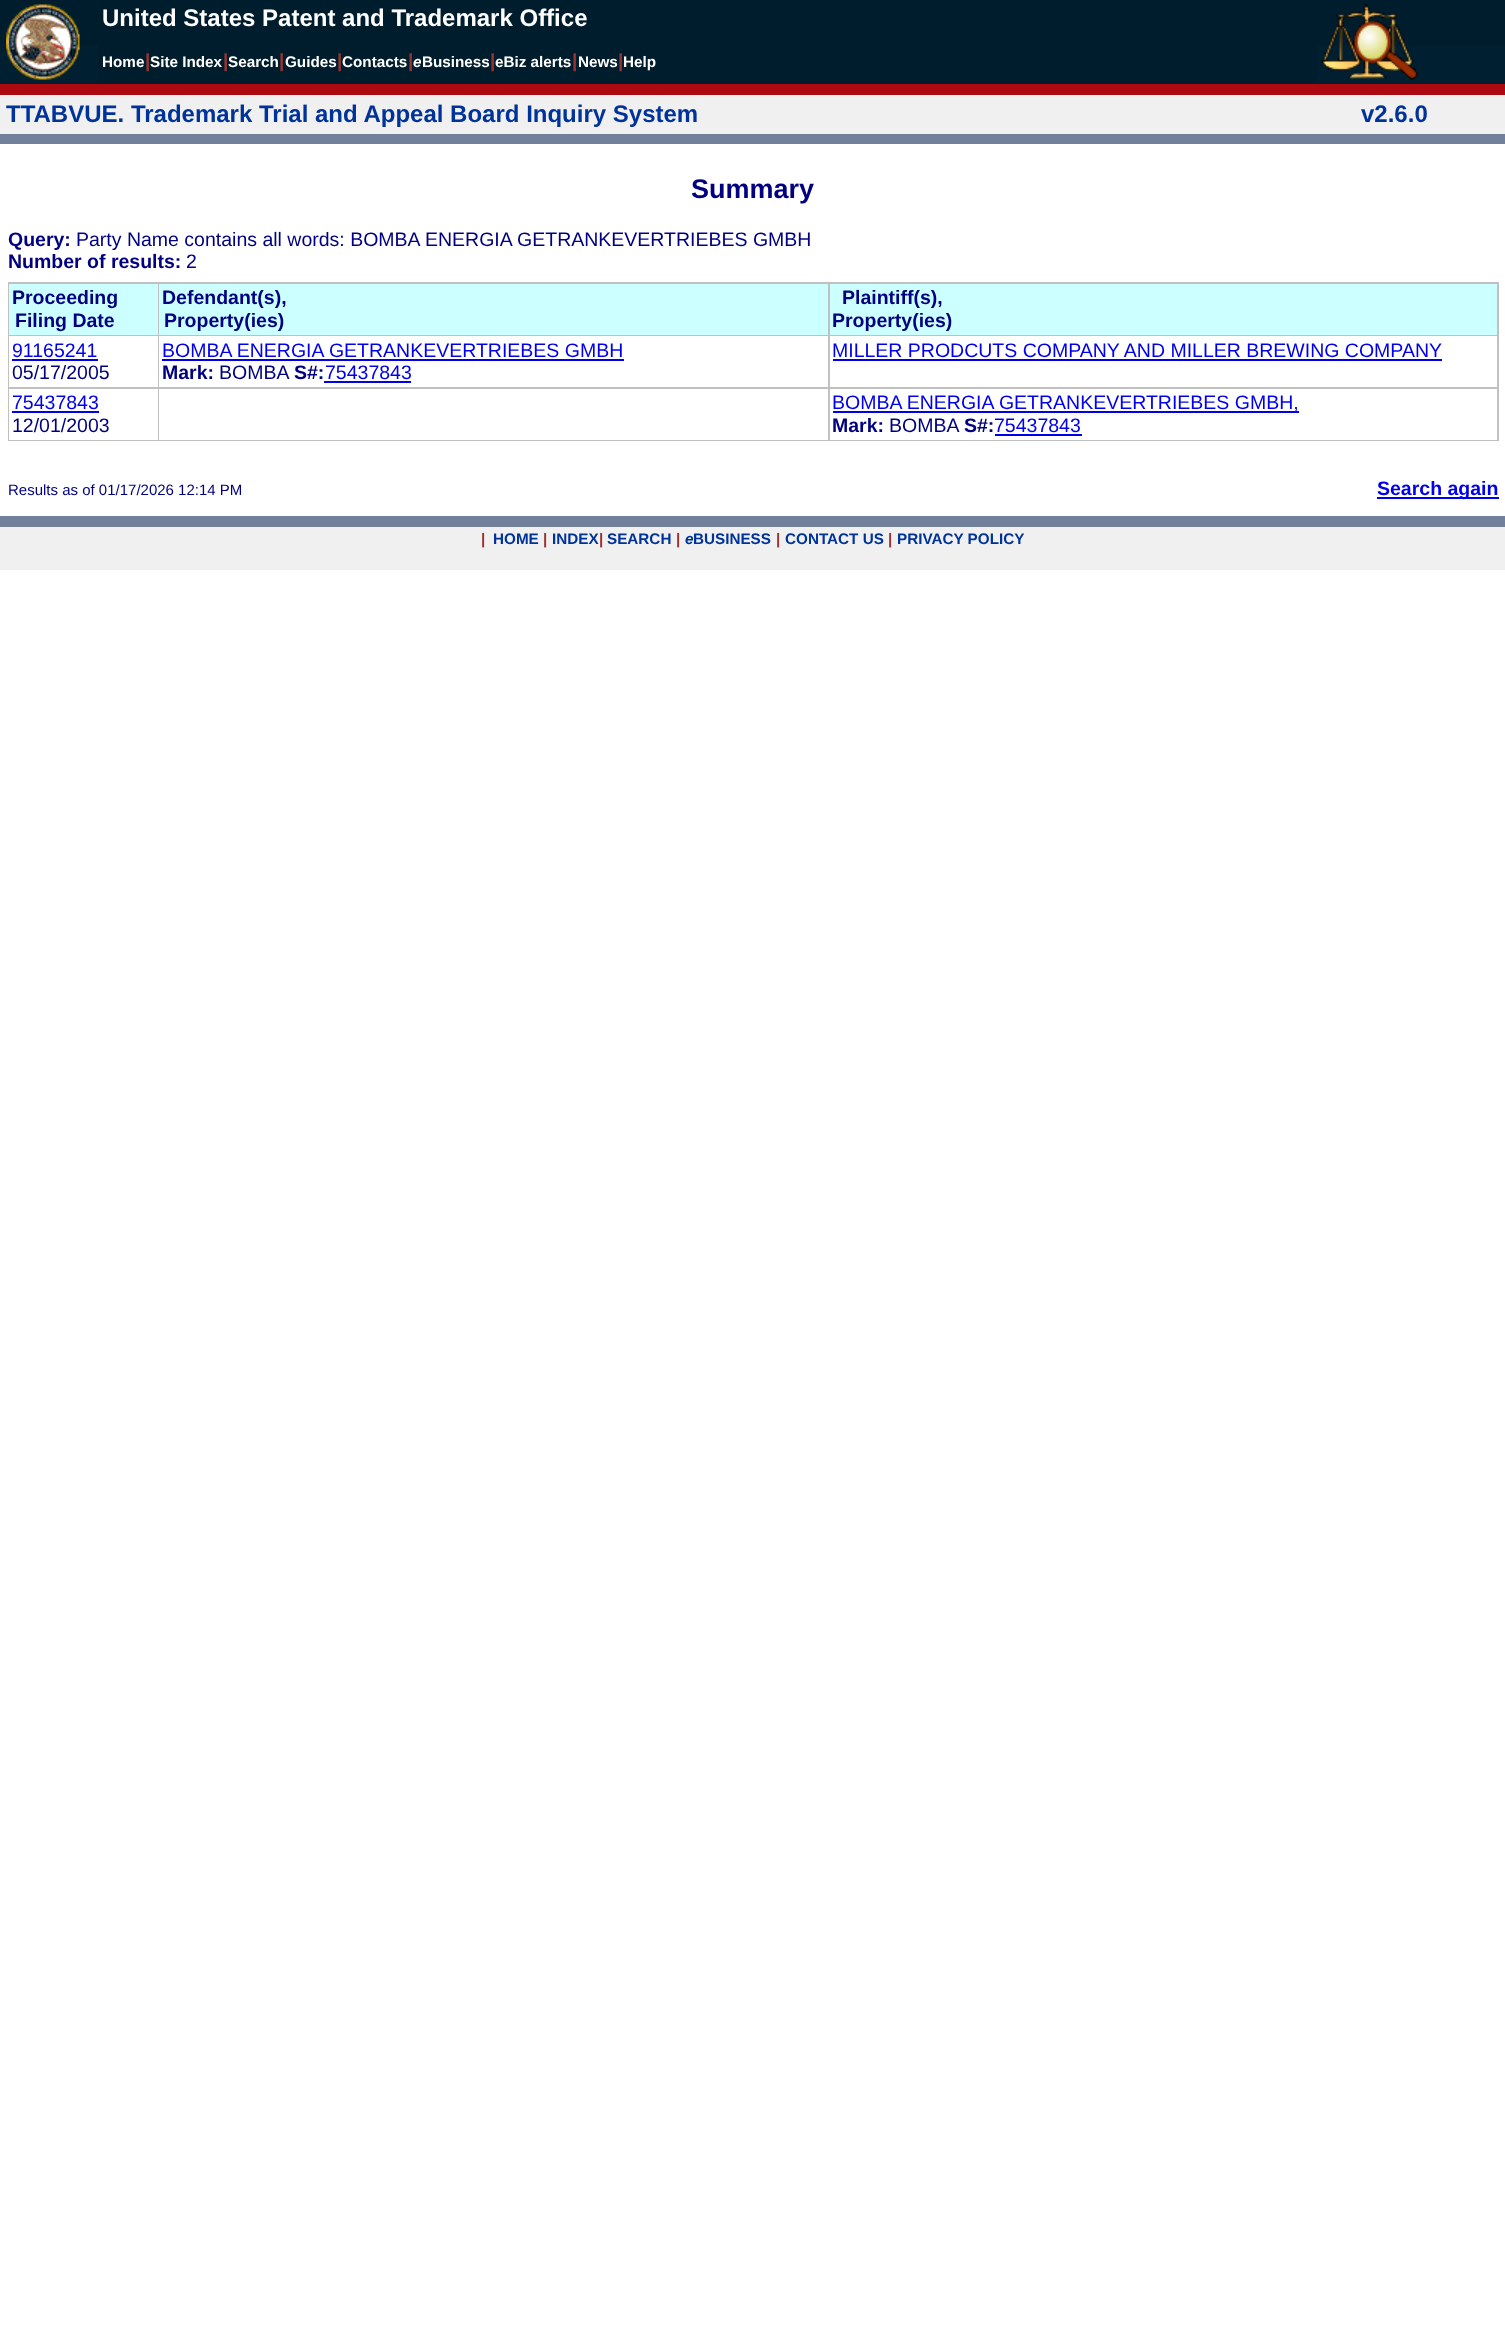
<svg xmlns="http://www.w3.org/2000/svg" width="1505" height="2342">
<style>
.a{font:bold 24px Liberation Sans;fill:#fff}
.b{font:bold 15.25px Liberation Sans;fill:#fff}
.c{font:bold 19px Liberation Sans;fill:#933}
.d{font:italic bold 15.25px Liberation Sans;fill:#fff}
.e{font:bold 24px Liberation Sans;fill:#039}
.f{font:bold 27px Liberation Sans;fill:#000080}
.g{font:bold 19.5px Liberation Sans;fill:#000080}
.h{font:19.5px Liberation Sans;fill:#000080}
.i{font:19.5px Liberation Sans;fill:#00e}
.j{font:15px Liberation Sans;fill:#000080}
.k{font:bold 19.5px Liberation Sans;fill:#00e}
.l{font:bold 15.25px Liberation Sans;fill:#933}
.m{font:bold 15.25px Liberation Sans;fill:#039}
.n{font:italic bold 15.25px Liberation Sans;fill:#039}
</style>
<rect width="100%" height="100%" fill="#fff"/>
<path fill="#001d2d" d="M0 0h1505v45H0z"/>
<path fill="#002032" d="M0 45h1505v39H0z"/>
<image href="1.png" x="6" y="4" width="74" height="76"/>
<image href="2.png" x="1321" y="4" width="97" height="76"/>
<path fill="#001d2d" d="M98 45h1219v39H98z"/>
<path fill="#ac0911" d="M0 84h1505v11H0z"/>
<path fill="#f0f0f0" d="M0 95h1505v39H0z"/>
<path fill="#71819b" d="M0 134h1505v10H0z"/>
<path fill="#c0c0c0" d="M8 282h1491v159H8z"/>
<path fill="#cff" d="M9 284h149v51H9z"/>
<path fill="#cff" d="M159 284h669v51H159z"/>
<path fill="#cff" d="M830 284h667v51H830z"/>
<path fill="#fff" d="M9 336h149v51H9z"/>
<path fill="#00e" d="M12 359h86v2H12z"/>
<path fill="#fff" d="M159 336h669v51H159z"/>
<path fill="#00e" d="M162 359h462v2H162z"/>
<path fill="#00e" d="M324 381h87v2H324z"/>
<path fill="#fff" d="M830 336h667v51H830z"/>
<path fill="#00e" d="M833 359h609v2H833z"/>
<path fill="#fff" d="M9 389h149v51H9z"/>
<path fill="#00e" d="M12 411h87v2H12z"/>
<path fill="#fff" d="M159 389h669v51H159z"/>
<path fill="#fff" d="M830 389h667v51H830z"/>
<path fill="#00e" d="M833 411h466v2H833z"/>
<path fill="#00e" d="M995 434h87v2H995z"/>
<path fill="#00e" d="M1377 497h122v2H1377z"/>
<path fill="#71819b" d="M0 516h1505v11H0z"/>
<path fill="#f0f0f0" d="M0 527h1505v43H0z"/>
<text class="a" x="102" y="26">United States Patent and Trademark Office</text>
<text class="b" x="102" y="67">Home</text>
<text class="c" x="145" y="67">|</text>
<text class="b" x="150" y="67">Site Index</text>
<text class="c" x="223" y="67">|</text>
<text class="b" x="228" y="67">Search</text>
<text class="c" x="279" y="67">|</text>
<text class="b" x="285" y="67">Guides</text>
<text class="c" x="337" y="67">|</text>
<text class="b" x="342" y="67">Contacts</text>
<text class="c" x="408" y="67">|</text>
<text class="d" x="413" y="67">e</text>
<text class="b" x="422" y="67">Business</text>
<text class="c" x="490" y="67">|</text>
<text class="b" x="495" y="67">eBiz alerts</text>
<text class="c" x="572" y="67">|</text>
<text class="b" x="578" y="67">News</text>
<text class="c" x="618" y="67">|</text>
<text class="b" x="623" y="67">Help</text>
<text class="e" x="6" y="122">TTABVUE. Trademark Trial and Appeal Board Inquiry System</text>
<text class="e" x="1361" y="122">v2.6.0</text>
<text class="f" x="691" y="198">Summary</text>
<text class="g" x="8" y="246">Query:</text>
<text class="h" x="76" y="246">Party Name contains all words: BOMBA ENERGIA GETRANKEVERTRIEBES GMBH</text>
<text class="g" x="8" y="268">Number of results:</text>
<text class="h" x="186" y="268">2</text>
<text class="g" x="12" y="304">Proceeding</text>
<text class="g" x="15" y="327">Filing Date</text>
<text class="g" x="162" y="304">Defendant(s),</text>
<text class="g" x="164" y="327">Property(ies)</text>
<text class="g" x="842" y="304">Plaintiff(s),</text>
<text class="g" x="832" y="327">Property(ies)</text>
<text class="i" x="12" y="357">91165241</text>
<text class="h" x="12" y="379">05/17/2005</text>
<text class="i" x="162" y="357">BOMBA ENERGIA GETRANKEVERTRIEBES GMBH</text>
<text class="g" x="162" y="379">Mark:</text>
<text class="h" x="219" y="379">BOMBA</text>
<text class="g" x="294" y="379">S#:</text>
<text class="i" x="325" y="379">75437843</text>
<text class="i" x="832" y="357">MILLER PRODCUTS COMPANY AND MILLER BREWING COMPANY</text>
<text class="i" x="12" y="409">75437843</text>
<text class="h" x="12" y="432">12/01/2003</text>
<text class="i" x="832" y="409">BOMBA ENERGIA GETRANKEVERTRIEBES GMBH,</text>
<text class="g" x="832" y="432">Mark:</text>
<text class="h" x="889" y="432">BOMBA</text>
<text class="g" x="964" y="432">S#:</text>
<text class="i" x="994" y="432">75437843</text>
<text class="j" x="8" y="495">Results as of 01/17/2026 12:14 PM</text>
<text class="k" x="1377" y="495">Search again</text>
<text class="l" x="481" y="544">|</text>
<text class="m" x="493" y="544">HOME</text>
<text class="l" x="543" y="544">|</text>
<text class="m" x="552" y="544">INDEX</text>
<text class="l" x="599" y="544">|</text>
<text class="m" x="607" y="544">SEARCH</text>
<text class="l" x="676" y="544">|</text>
<text class="n" x="685" y="544">e</text>
<text class="m" x="693" y="544">BUSINESS</text>
<text class="l" x="776" y="544">|</text>
<text class="m" x="785" y="544">CONTACT US</text>
<text class="l" x="888" y="544">|</text>
<text class="m" x="897" y="544">PRIVACY POLICY</text>
</svg>
